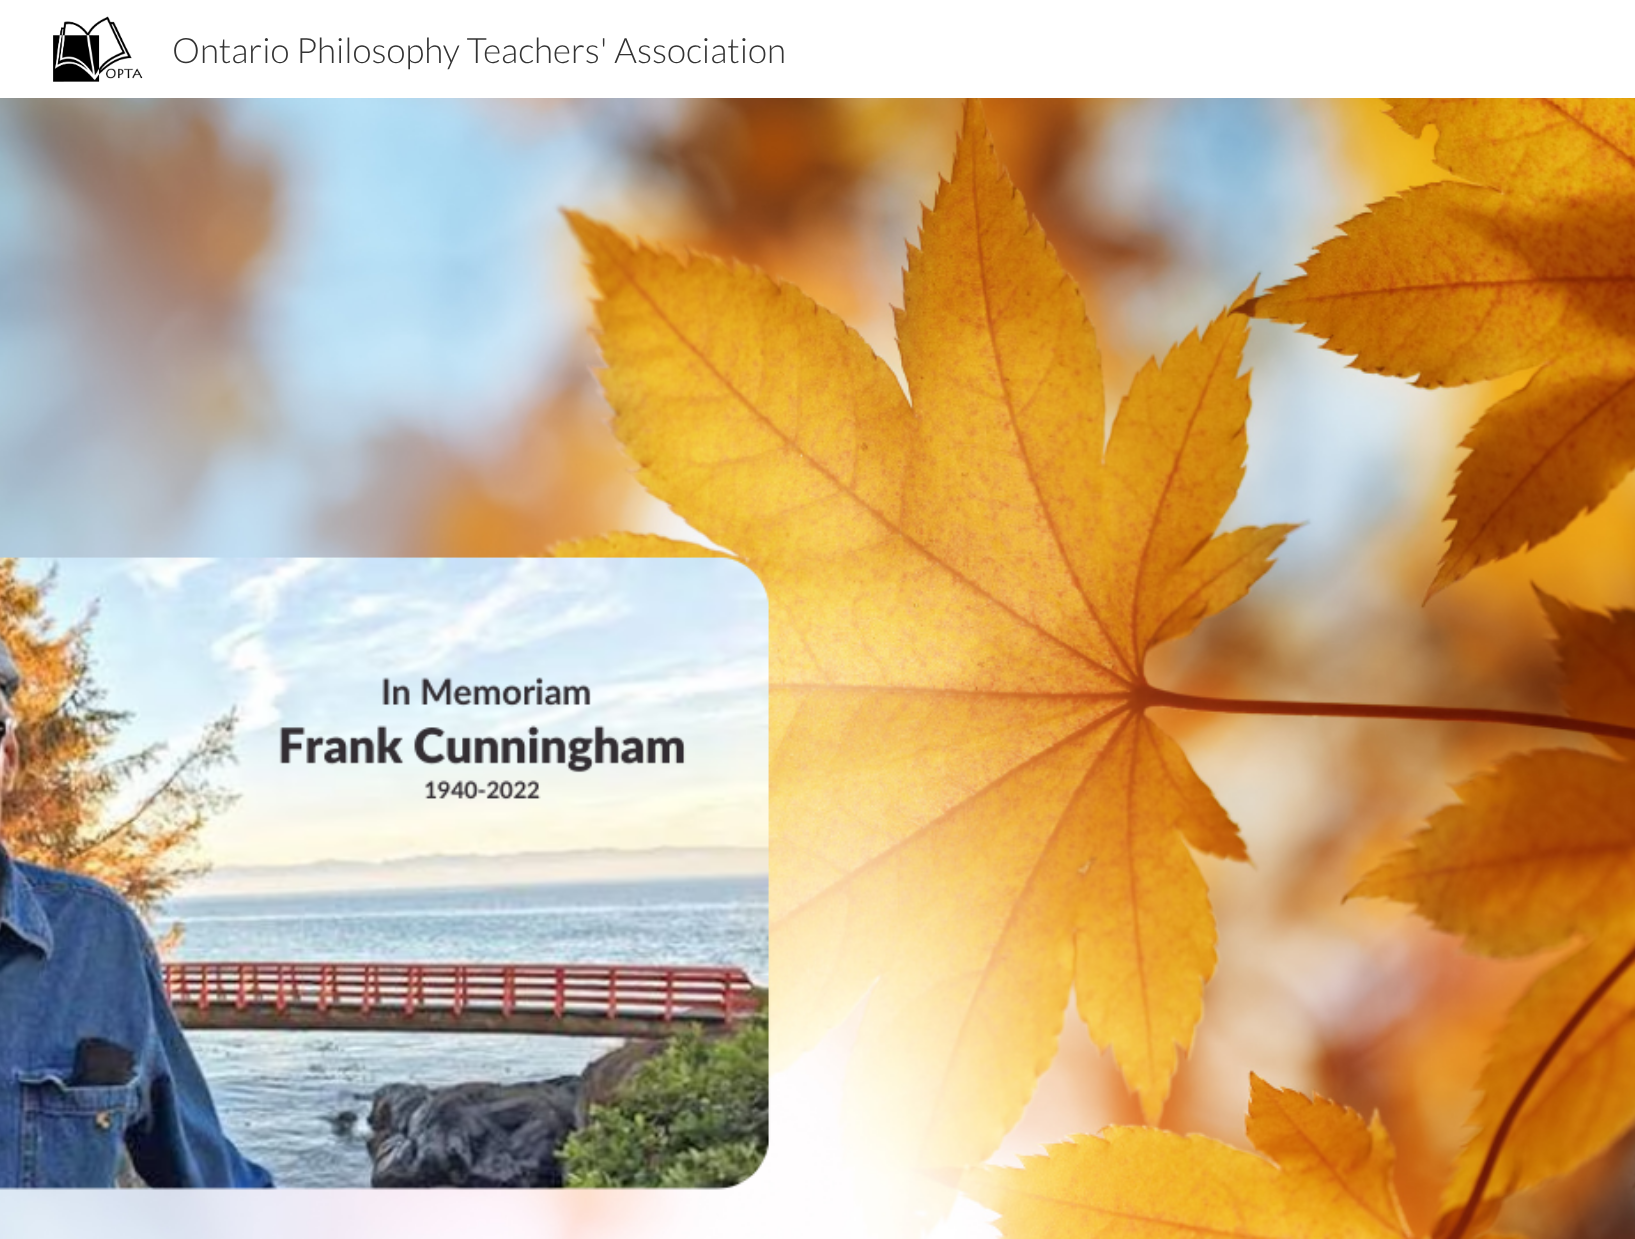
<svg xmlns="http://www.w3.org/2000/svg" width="1635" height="1239">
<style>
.a{font:300 35px Lato;fill:#333}
</style>
<rect width="100%" height="100%" fill="#fff"/>
<image href="1.png" x="53" y="16" width="90" height="66"/>
<image href="2.png" x="0" y="98" width="1635" height="1141"/>
<text class="a" x="172" y="63">Ontario Philosophy Teachers' Association</text>
</svg>
